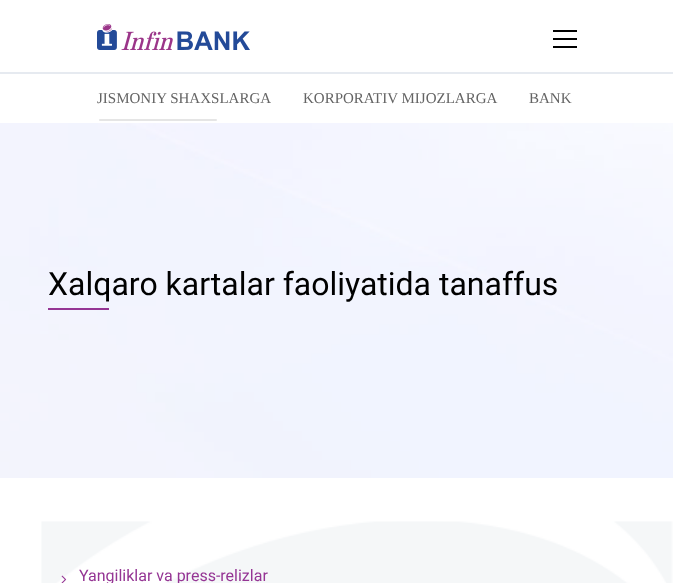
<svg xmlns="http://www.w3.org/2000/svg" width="673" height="583">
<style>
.a{font:15px Liberation Serif;fill:#646464}
.b{font:32px Roboto;fill:#000}
.c{font:16px Roboto;fill:#953594}
</style>
<rect width="100%" height="100%" fill="#fff"/>
<image href="1.png" x="97" y="24" width="153" height="26"/>
<path fill="#000" d="M553 30h24v2H553z"/>
<path fill="#000" d="M553 38h24v2H553z"/>
<path fill="#000" d="M553 46h24v2H553z"/>
<path fill="#e6eaf0" d="M0 72h673v2H0z"/>
<rect fill="#e5e5e5" x="99" y="119" width="118" height="2" rx="1"/>
<image href="2.png" x="0" y="123" width="673" height="355"/>
<path fill="#953594" d="M48 308h61v2H48z"/>
<image href="3.png" x="41" y="521" width="632" height="62"/>
<image href="4.png" x="61" y="575" width="6" height="8"/>
<text class="a" x="97" y="103">JISMONIY SHAXSLARGA</text>
<text class="a" x="303" y="103">KORPORATIV MIJOZLARGA</text>
<text class="a" x="529" y="103">BANK</text>
<text class="b" x="48" y="295">Xalqaro kartalar faoliyatida tanaffus</text>
<text class="c" x="79" y="581">Yangiliklar va press-relizlar</text>
</svg>
